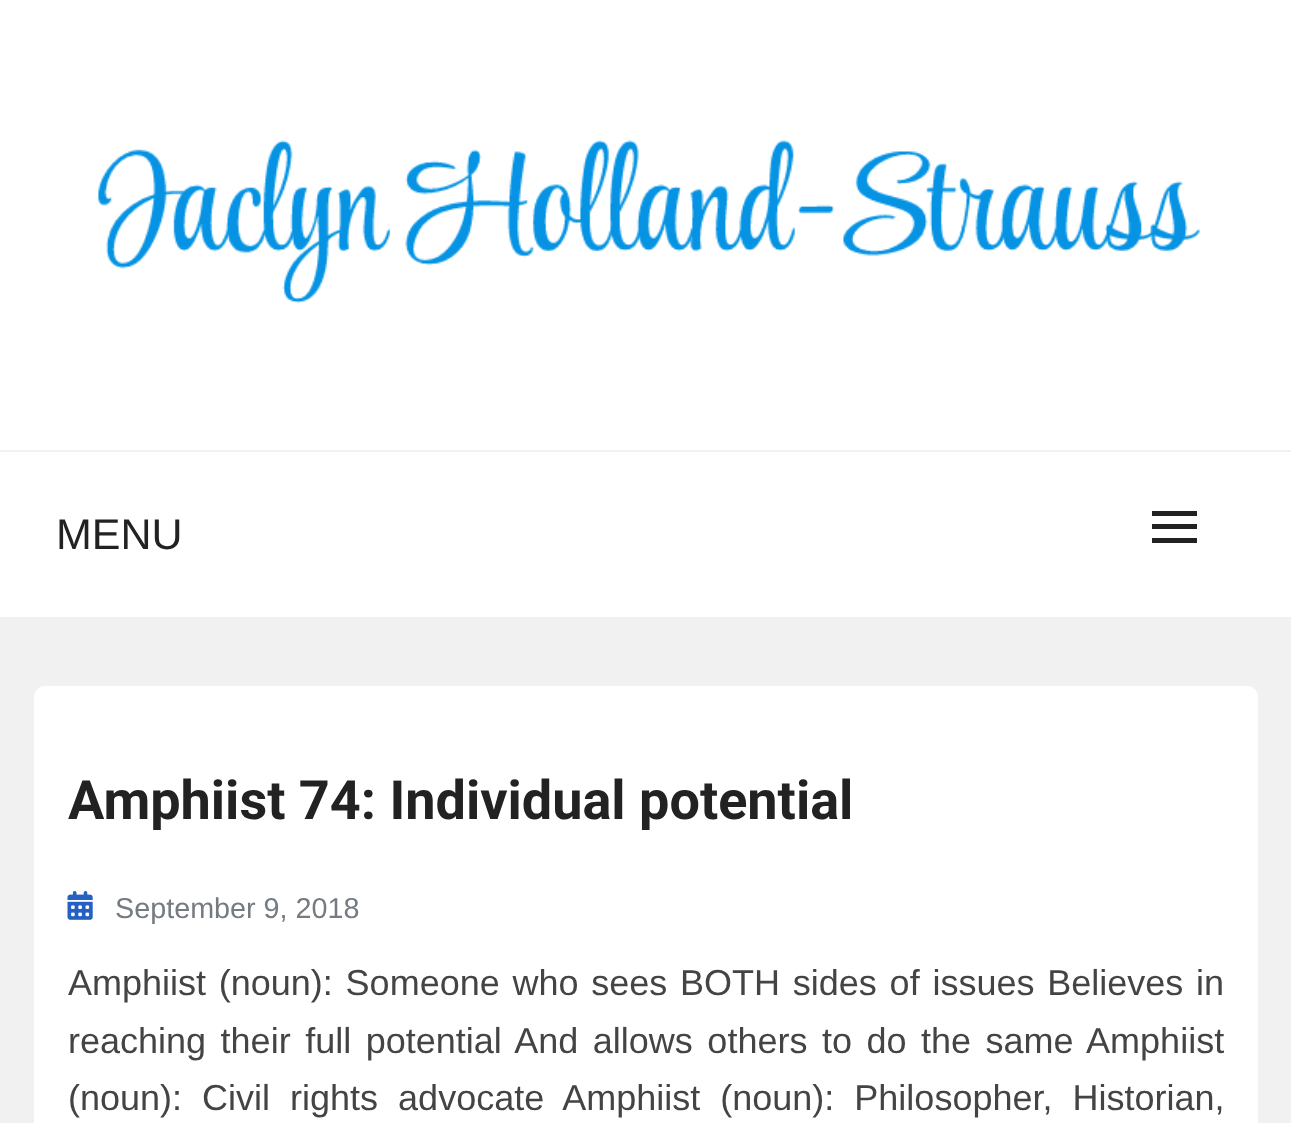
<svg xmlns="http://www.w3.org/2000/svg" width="1291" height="1123">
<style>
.a{font:43px Liberation Sans;fill:#222}
.b{font:bold 54px Roboto;fill:#222}
.c{font:28.75px Liberation Sans;fill:#757b81}
.d{font:36px Liberation Sans;fill:#444}
</style>
<rect width="100%" height="100%" fill="#f1f1f1"/>
<path fill="#fff" d="M0 0h1291v617H0z"/>
<image href="1.png" x="98" y="140" width="1102" height="164"/>
<path fill="#f1f1f1" d="M0 450h1291v2H0z"/>
<path fill="#222" d="M1152 511h45v5H1152z"/>
<path fill="#222" d="M1152 524h45v5H1152z"/>
<path fill="#222" d="M1152 538h45v5H1152z"/>
<rect fill="#fff" x="34" y="686" width="1224" height="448" rx="11"/>
<image href="2.png" x="67" y="891" width="26" height="29"/>
<text class="a" x="56" y="549">MENU</text>
<text class="b" x="68" y="819">Amphiist 74: Individual potential</text>
<text class="c" x="115" y="918">September 9, 2018</text>
<text class="d" x="68" y="995" word-spacing="2.75">Amphiist (noun): Someone who sees BOTH sides of issues Believes in</text>
<text class="d" x="68" y="1053" word-spacing="4.5">reaching their full potential And allows others to do the same Amphiist</text>
<text class="d" x="68" y="1110" word-spacing="10">(noun): Civil rights advocate Amphiist (noun): Philosopher, Historian,</text>
</svg>
